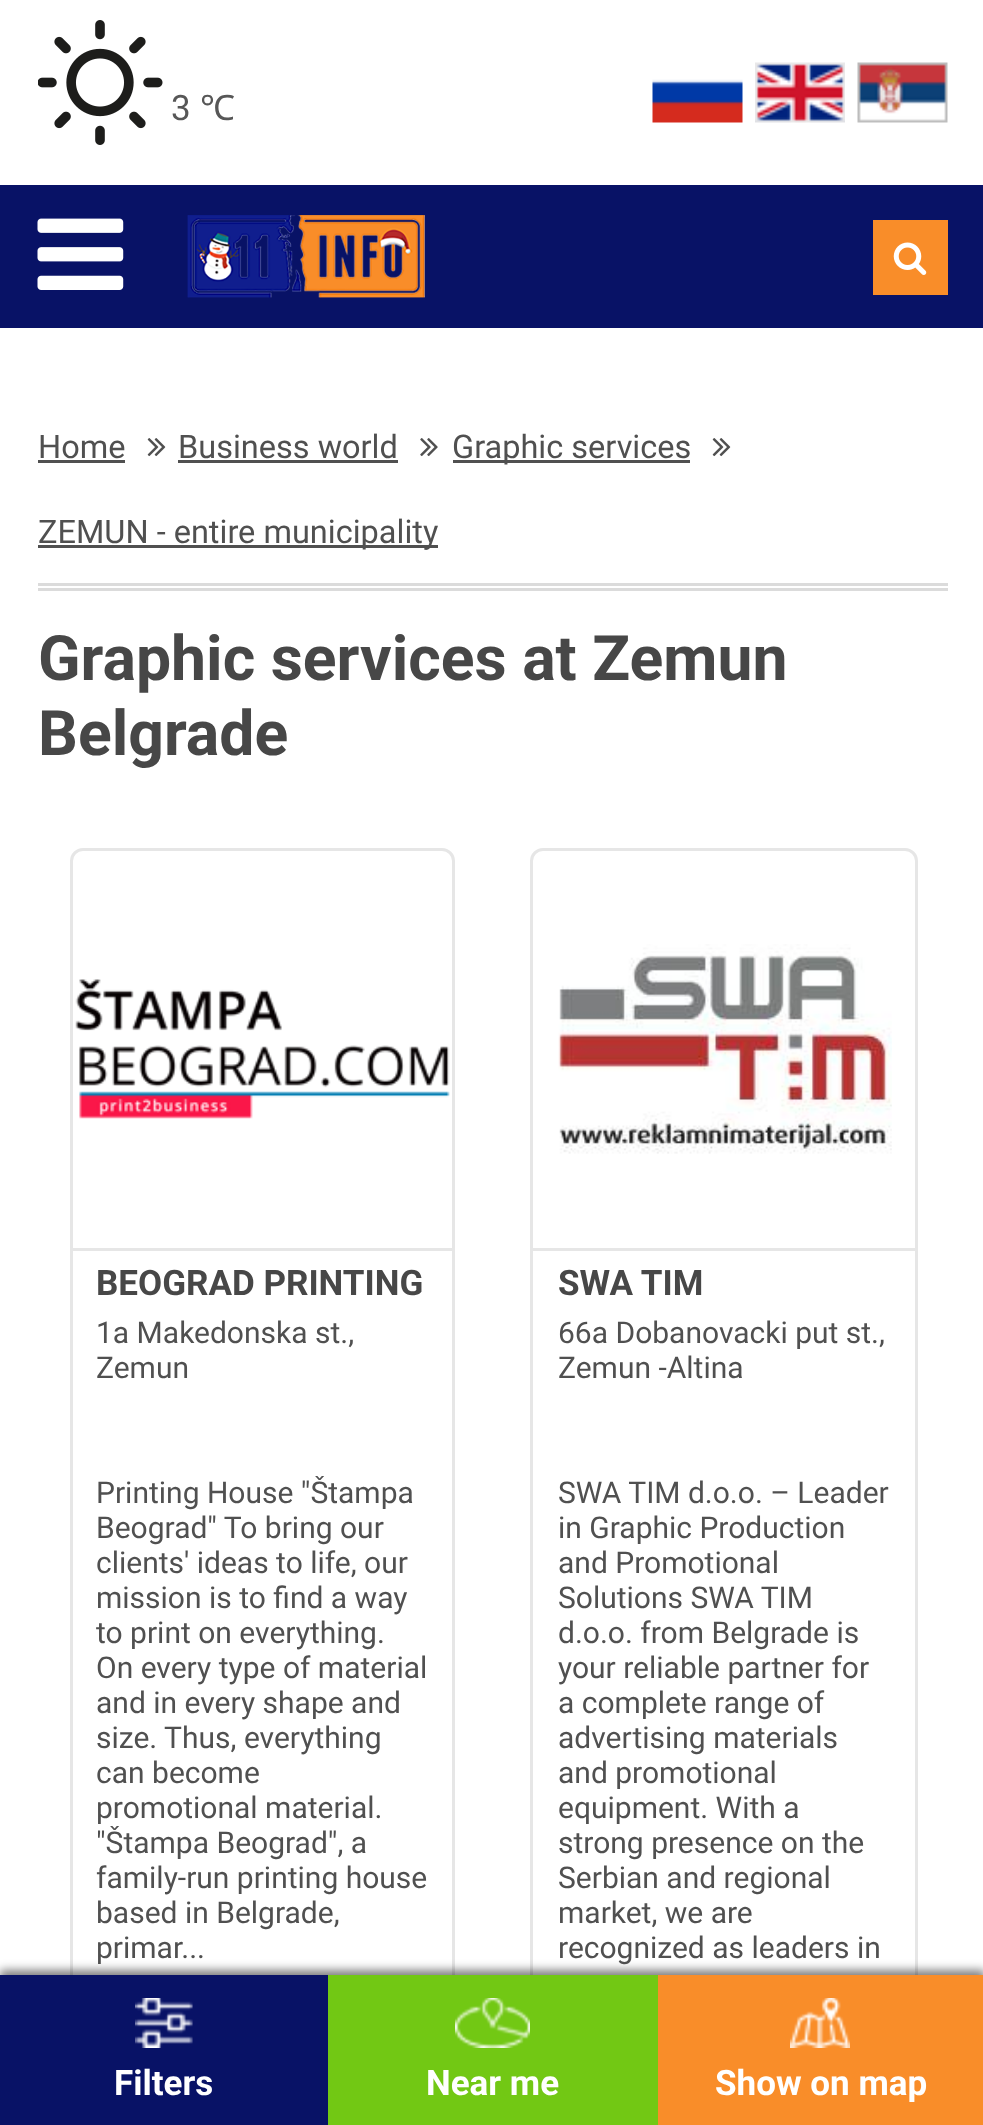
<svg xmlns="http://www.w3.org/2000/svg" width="983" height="2125">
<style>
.a{font:35px Roboto;fill:#575757}
.b{font:35px Noto Sans;fill:#575757}
.c{font:32.5px Roboto;fill:#505050}
.d{font:bold 62.5px Roboto;fill:#474747}
.e{font:bold 35px Roboto;fill:#474747}
.f{font:30px Roboto;fill:#505050}
.g{font:bold 35px Roboto;fill:#fff}
</style>
<rect width="100%" height="100%" fill="#fff"/>
<image href="1.png" x="38" y="20" width="125" height="125"/>
<image href="2.png" x="652" y="79" width="91" height="44"/>
<image href="3.png" x="755" y="62" width="90" height="61"/>
<image href="4.png" x="857" y="62" width="91" height="61"/>
<path fill="#081266" d="M0 185h983v143H0z"/>
<image href="5.png" x="37" y="218" width="87" height="72"/>
<image href="6.png" x="187" y="215" width="238" height="83"/>
<path fill="#f98d29" d="M873 220h75v75H873z"/>
<image href="7.png" x="893" y="242" width="34" height="33"/>
<path fill="#505050" d="M38 460h87v3H38z"/>
<image href="8.png" x="147" y="438" width="19" height="19"/>
<path fill="#505050" d="M178 460h220v3H178z"/>
<image href="9.png" x="420" y="438" width="18" height="19"/>
<path fill="#505050" d="M453 460h237v3H453z"/>
<image href="8.png" x="712" y="438" width="19" height="19"/>
<path fill="#505050" d="M38 545h400v3H38z"/>
<path fill="#dbdbdb" d="M38 583h910v3H38z"/>
<path fill="#dbdbdb" d="M38 588h910v3H38z"/>
<rect fill="none" stroke="#e6e6e6" stroke-width="3" x="71.5" y="849.5" width="382" height="1252" rx="11.5"/>
<path fill="#e6e6e6" d="M73 1248h380v3H73z"/>
<image href="10.png" x="75" y="979" width="375" height="140"/>
<rect fill="none" stroke="#e6e6e6" stroke-width="3" x="531.5" y="849.5" width="385" height="1252" rx="11.5"/>
<path fill="#e6e6e6" d="M533 1248h382v3H533z"/>
<image href="11.png" x="558" y="944" width="334" height="210"/>
<path fill="#00000080" filter="blur(5px)" d="M0 1970h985v150H0z"/>
<path fill="#081266" d="M0 1975h328v150H0z"/>
<image href="12.png" x="135" y="1998" width="58" height="50"/>
<path fill="#72c814" d="M328 1975h330v150H328z"/>
<image href="13.png" x="455" y="1998" width="75" height="50"/>
<path fill="#f98d29" d="M658 1975h325v150H658z"/>
<image href="14.png" x="790" y="1998" width="60" height="50"/>
<text class="a" x="171" y="120">3</text>
<text class="b" x="200" y="120">℃</text>
<text class="c" x="38" y="458">Home</text>
<text class="c" x="178" y="458">Business world</text>
<text class="c" x="452" y="458">Graphic services</text>
<text class="c" x="38" y="543">ZEMUN - entire municipality</text>
<text class="d" x="38" y="680">Graphic services at Zemun</text>
<text class="d" x="38" y="755">Belgrade</text>
<text class="e" x="96" y="1295">BEOGRAD PRINTING</text>
<text class="f" x="96" y="1343">1a Makedonska st.,</text>
<text class="f" x="96" y="1378">Zemun</text>
<text class="f" x="96" y="1503">Printing House "Štampa</text>
<text class="f" x="96" y="1538">Beograd" To bring our</text>
<text class="f" x="96" y="1573">clients' ideas to life, our</text>
<text class="f" x="96" y="1608">mission is to find a way</text>
<text class="f" x="96" y="1643">to print on everything.</text>
<text class="f" x="96" y="1678">On every type of material</text>
<text class="f" x="96" y="1713">and in every shape and</text>
<text class="f" x="96" y="1748">size. Thus, everything</text>
<text class="f" x="96" y="1783">can become</text>
<text class="f" x="96" y="1818">promotional material.</text>
<text class="f" x="96" y="1853">"Štampa Beograd", a</text>
<text class="f" x="96" y="1888">family-run printing house</text>
<text class="f" x="96" y="1923">based in Belgrade,</text>
<text class="f" x="96" y="1958">primar...</text>
<text class="e" x="558" y="1295">SWA TIM</text>
<text class="f" x="558" y="1343">66a Dobanovacki put st.,</text>
<text class="f" x="558" y="1378">Zemun -Altina</text>
<text class="f" x="558" y="1503">SWA TIM d.o.o. – Leader</text>
<text class="f" x="558" y="1538">in Graphic Production</text>
<text class="f" x="558" y="1573">and Promotional</text>
<text class="f" x="558" y="1608">Solutions SWA TIM</text>
<text class="f" x="558" y="1643">d.o.o. from Belgrade is</text>
<text class="f" x="558" y="1678">your reliable partner for</text>
<text class="f" x="558" y="1713">a complete range of</text>
<text class="f" x="558" y="1748">advertising materials</text>
<text class="f" x="558" y="1783">and promotional</text>
<text class="f" x="558" y="1818">equipment. With a</text>
<text class="f" x="558" y="1853">strong presence on the</text>
<text class="f" x="558" y="1888">Serbian and regional</text>
<text class="f" x="558" y="1923">market, we are</text>
<text class="f" x="558" y="1958">recognized as leaders in</text>
<text class="g" x="114" y="2095">Filters</text>
<text class="g" x="426" y="2095">Near me</text>
<text class="g" x="715" y="2095">Show on map</text>
</svg>
